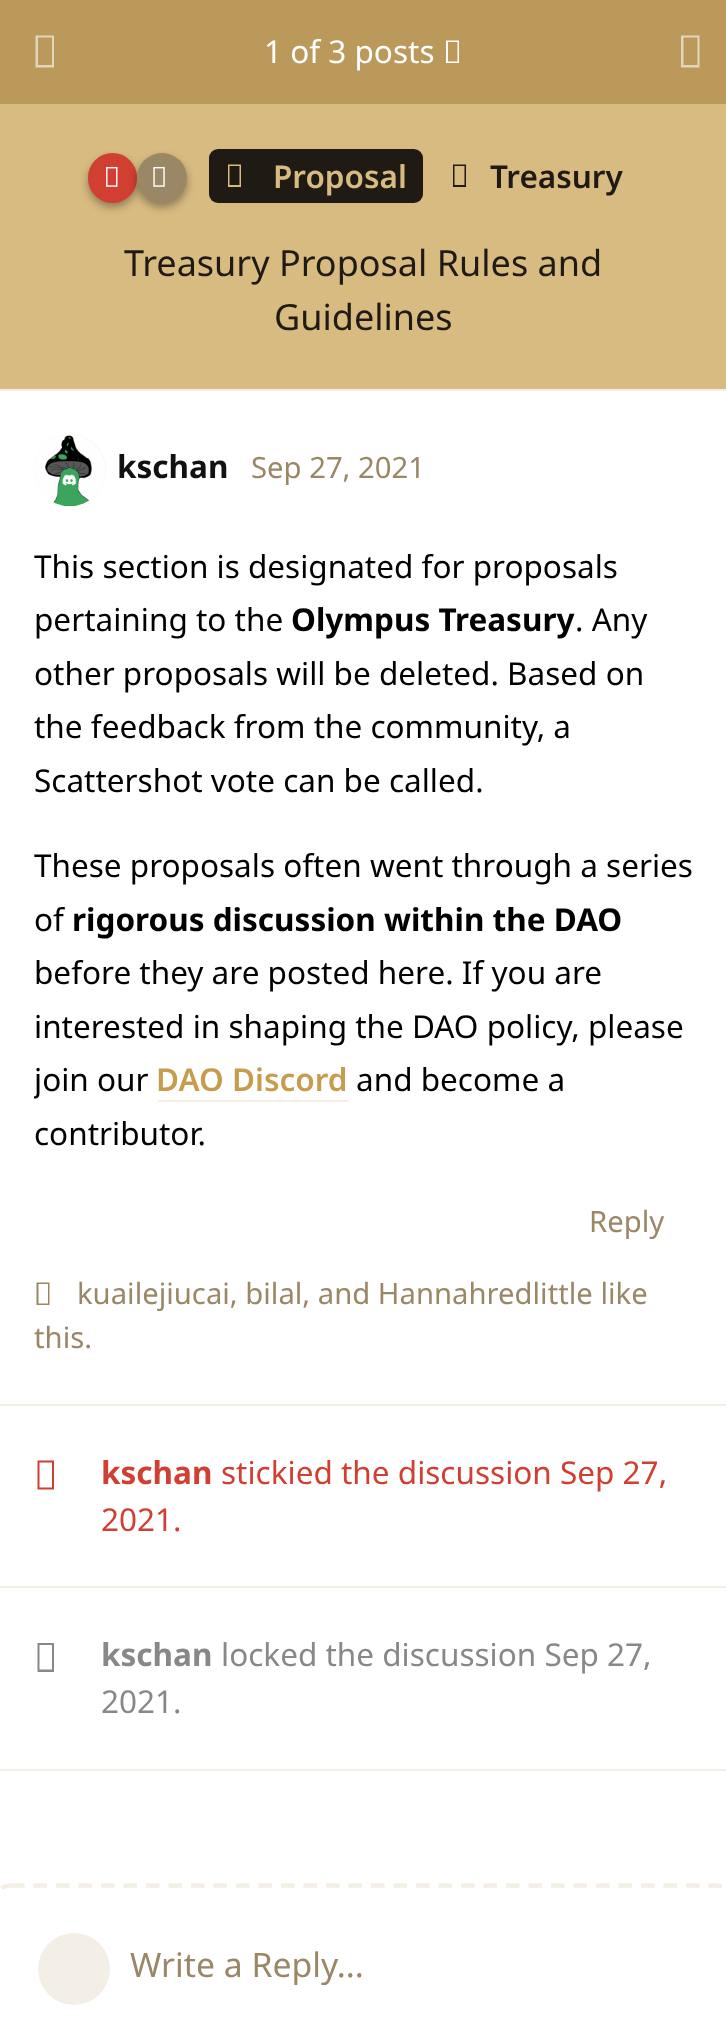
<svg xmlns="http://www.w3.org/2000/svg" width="726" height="2028">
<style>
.a{font:31.5px Noto Sans;fill:#fff}
.b{font:bold 31.5px Noto Sans;fill:#111}
.c{font:29.25px Noto Sans;fill:#998766}
.d{font:31.5px Noto Sans;fill:#000}
.e{font:bold 31.5px Noto Sans;fill:#000}
.f{font:600 31.5px Noto Sans;fill:#c69d4f}
.g{font:bold 31.5px Noto Sans;fill:#d13e32}
.h{font:31.5px Noto Sans;fill:#d13e32}
.i{font:bold 31.5px Noto Sans;fill:#888}
.j{font:31.5px Noto Sans;fill:#888}
.k{font:33.75px Noto Sans;fill:#998766}
.l{font:600 31.5px Noto Sans;fill:#d8bb81}
.m{font:600 31.5px Noto Sans;fill:#1f1b14}
.n{font:36px Noto Sans;fill:#1f1b14}
</style>
<defs>
<clipPath id="clip1"><path d="M34 540h659v653H34z"/></clipPath>
</defs>
<rect width="100%" height="100%" fill="#fff"/>
<path fill="#ba995b" d="M0 0h726v104H0z"/>
<path fill="#e3d6bd" d="M35.5 67.5v-32h18.5v32zm2.5-2.5h14v-27.5h-14z"/>
<path fill="#f4efe6" d="M0 389h726v2H0z"/>
<path fill="#fff" d="M446 63v-22.5h13v22.5zm2-1.5h9.5v-19.5h-9.5z"/>
<path fill="#e3d6bd" d="M681 67.5v-32h18.5v32zm2.5-2.5h14v-27.5h-14z"/>
<path fill="#f4efe6" d="M0 1404h726v2H0z"/>
<circle fill="#f4efe6" cx="70" cy="470" r="36"/>
<image href="1.png" x="34" y="434" width="72" height="73"/>
<path fill="#f4efe6" d="M158 1100h191v2H158z"/>
<path fill="#998766" d="M36.5 1305v-22.5h13v22.5zm2-1.5h9.5v-19.5h-9.5z"/>
<path fill="#f4efe6" d="M0 1586h726v2H0z"/>
<path fill="#d13e32" d="M37.5 1489.5v-29h16.5v29zm2-2h12.5v-25h-12.5z"/>
<path fill="#f4efe6" d="M0 1769h726v2H0z"/>
<path fill="#888" d="M37.5 1672v-29h16.5v29zm2-2.5h12.5v-24.5h-12.5z"/>
<path fill="none" stroke="#f4efe6" stroke-width="4.5" stroke-dasharray="13.5 9" d="M11 1885.5h704.5c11 0 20.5 9 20.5 20.5v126c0 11-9.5 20-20.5 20h-704.5c-11 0-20-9-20-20v-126c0-11.5 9-20.5 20-20.5z"/>
<circle fill="#f4efe6" cx="74" cy="1969" r="36"/>
<path fill="#d8bb81" d="M0 104h726v285H0z"/>
<rect fill="#00000059" filter="blur(4.5px)" x="88" y="158" width="49" height="49" rx="24.5"/>
<rect fill="#d13e32" x="88" y="153" width="49" height="50" rx="24.5"/>
<image href="2.png" x="106" y="166" width="12" height="21"/>
<rect fill="#00000059" filter="blur(4.5px)" x="137" y="158" width="50" height="49" rx="24.5"/>
<circle fill="#998766" cx="162" cy="178" r="25"/>
<image href="3.png" x="153" y="166" width="12" height="21"/>
<rect fill="#1f1b14" x="209" y="149" width="214" height="54" rx="9"/>
<path fill="#d8bb81" d="M228 187v-22.5h13v22.5zm1.5-2h10v-19h-10z"/>
<path fill="#1f1b14" d="M453 187v-22.5h13v22.5zm1.5-2h10v-19h-10z"/>
<text class="a" x="264" y="63">1 of 3 posts</text>
<text class="b" x="117" y="478">kschan</text>
<text class="c" x="251" y="478">Sep 27, 2021</text>
<text class="d" x="34" y="578">This section is designated for proposals</text>
<text class="d" x="34" y="631">pertaining to the</text>
<text class="e" x="291" y="631">Olympus Treasury</text>
<text class="d" x="575" y="631">. Any</text>
<text class="d" x="34" y="685">other proposals will be deleted. Based on</text>
<text class="d" x="34" y="738">the feedback from the community, a</text>
<text class="d" x="34" y="792">Scattershot vote can be called.</text>
<text class="d" x="34" y="877">These proposals often went through a series</text>
<text class="d" x="34" y="931">of</text>
<text class="e" x="72" y="931">rigorous discussion within the DAO</text>
<text class="d" x="34" y="984">before they are posted here. If you are</text>
<text class="d" x="34" y="1038">interested in shaping the DAO policy, please</text>
<g clip-path="url(#clip1)">
<text class="d" x="34" y="1091">join our</text>
</g>
<text class="f" x="156" y="1091">DAO Discord</text>
<text class="d" x="356" y="1091">and become a</text>
<text class="d" x="34" y="1145">contributor.</text>
<text class="c" x="589" y="1232">Reply</text>
<text class="c" x="77" y="1304">kuailejiucai, bilal, and Hannahredlittle like</text>
<text class="c" x="34" y="1348">this.</text>
<text class="g" x="101" y="1484">kschan</text>
<text class="h" x="221" y="1484">stickied the discussion Sep 27,</text>
<text class="h" x="101" y="1531">2021.</text>
<text class="i" x="101" y="1666">kschan</text>
<text class="j" x="221" y="1666">locked the discussion Sep 27,</text>
<text class="j" x="101" y="1713">2021.</text>
<text class="k" x="130" y="1977">Write a Reply...</text>
<text class="l" x="273" y="188">Proposal</text>
<text class="m" x="490" y="188">Treasury</text>
<text class="n" x="124" y="276">Treasury Proposal Rules and</text>
<text class="n" x="274" y="330">Guidelines</text>
</svg>
